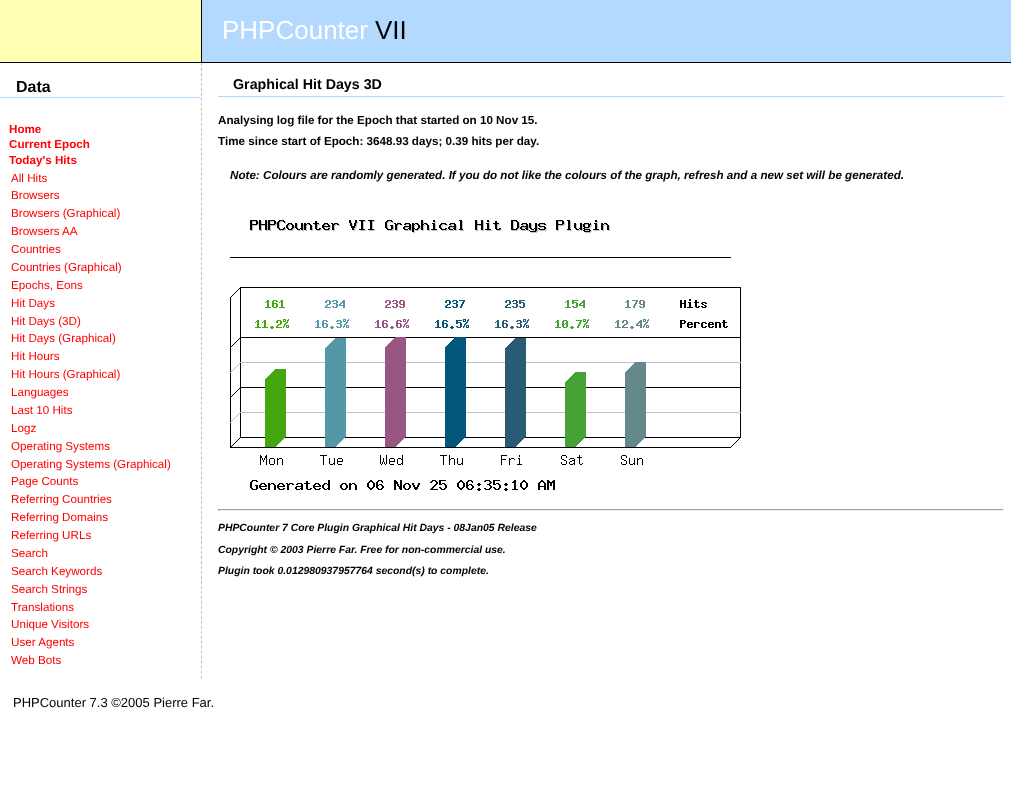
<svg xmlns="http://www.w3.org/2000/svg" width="1011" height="789">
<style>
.a{font:26px Liberation Sans;fill:#fff}
.b{font:26px Liberation Sans;fill:#000}
.c{font:bold 16px Liberation Sans;fill:#000}
.d{font:bold 11.65px Liberation Sans;fill:#f00}
.e{font:11.65px Liberation Sans;fill:#f00}
.f{font:bold 14.25px Liberation Sans;fill:#000}
.g{font:bold 11.65px Liberation Sans;fill:#000}
.h{font:italic bold 11.65px Liberation Sans;fill:#000}
.i{font:italic bold 10.4px Liberation Sans;fill:#000}
.j{font:13px Liberation Sans;fill:#000}
</style>
<rect width="100%" height="100%" fill="#fff"/>
<path fill="#ffffb3" d="M0 0h201v62H0z"/>
<path fill="#000" d="M201 0h1v63H201z"/>
<path fill="#000" d="M0 62h1011v1H0z"/>
<path fill="#b3d9ff" d="M202 0h809v62H202z"/>
<path fill="none" stroke="#c0c0c0" stroke-dasharray="3 1.98" d="M201.5 63v616"/>
<path fill="#b3d9ff" d="M0 97h201v1H0z"/>
<path fill="#b3d9ff" d="M218 96h786v1H218z"/>
<image href="1.png" x="230" y="220" width="511" height="271"/>
<path fill="#9f9f9f" d="M218 509h786v1H218z"/>
<path fill="#eee" d="M1003 509h1v2H1003z"/>
<path fill="#eee" d="M218 510h786v1H218z"/>
<path fill="#9f9f9f" d="M218 509h1v2H218z"/>
<text class="a" x="222" y="39">PHPCounter</text>
<text class="b" x="375" y="39">VII</text>
<text class="c" x="16" y="92">Data</text>
<text class="d" x="9" y="133">Home</text>
<text class="d" x="9" y="148">Current Epoch</text>
<text class="d" x="9" y="164">Today's Hits</text>
<text class="e" x="11" y="182">All Hits</text>
<text class="e" x="11" y="199">Browsers</text>
<text class="e" x="11" y="217">Browsers (Graphical)</text>
<text class="e" x="11" y="235">Browsers AA</text>
<text class="e" x="11" y="253">Countries</text>
<text class="e" x="11" y="271">Countries (Graphical)</text>
<text class="e" x="11" y="289">Epochs, Eons</text>
<text class="e" x="11" y="307">Hit Days</text>
<text class="e" x="11" y="325">Hit Days (3D)</text>
<text class="e" x="11" y="342">Hit Days (Graphical)</text>
<text class="e" x="11" y="360">Hit Hours</text>
<text class="e" x="11" y="378">Hit Hours (Graphical)</text>
<text class="e" x="11" y="396">Languages</text>
<text class="e" x="11" y="414">Last 10 Hits</text>
<text class="e" x="11" y="432">Logz</text>
<text class="e" x="11" y="450">Operating Systems</text>
<text class="e" x="11" y="468">Operating Systems (Graphical)</text>
<text class="e" x="11" y="485">Page Counts</text>
<text class="e" x="11" y="503">Referring Countries</text>
<text class="e" x="11" y="521">Referring Domains</text>
<text class="e" x="11" y="539">Referring URLs</text>
<text class="e" x="11" y="557">Search</text>
<text class="e" x="11" y="575">Search Keywords</text>
<text class="e" x="11" y="593">Search Strings</text>
<text class="e" x="11" y="611">Translations</text>
<text class="e" x="11" y="628">Unique Visitors</text>
<text class="e" x="11" y="646">User Agents</text>
<text class="e" x="11" y="664">Web Bots</text>
<text class="f" x="233" y="89">Graphical Hit Days 3D</text>
<text class="g" x="218" y="124">Analysing log file for the Epoch that started on 10 Nov 15.</text>
<text class="g" x="218" y="145">Time since start of Epoch: 3648.93 days; 0.39 hits per day.</text>
<text class="h" x="230" y="179">Note: Colours are randomly generated. If you do not like the colours of the graph, refresh and a new set will be generated.</text>
<text class="i" x="218" y="531">PHPCounter 7 Core Plugin Graphical Hit Days - 08Jan05 Release</text>
<text class="i" x="218" y="553">Copyright © 2003 Pierre Far. Free for non-commercial use.</text>
<text class="i" x="218" y="574">Plugin took 0.012980937957764 second(s) to complete.</text>
<text class="j" x="13" y="707">PHPCounter 7.3 ©2005 Pierre Far.</text>
</svg>
